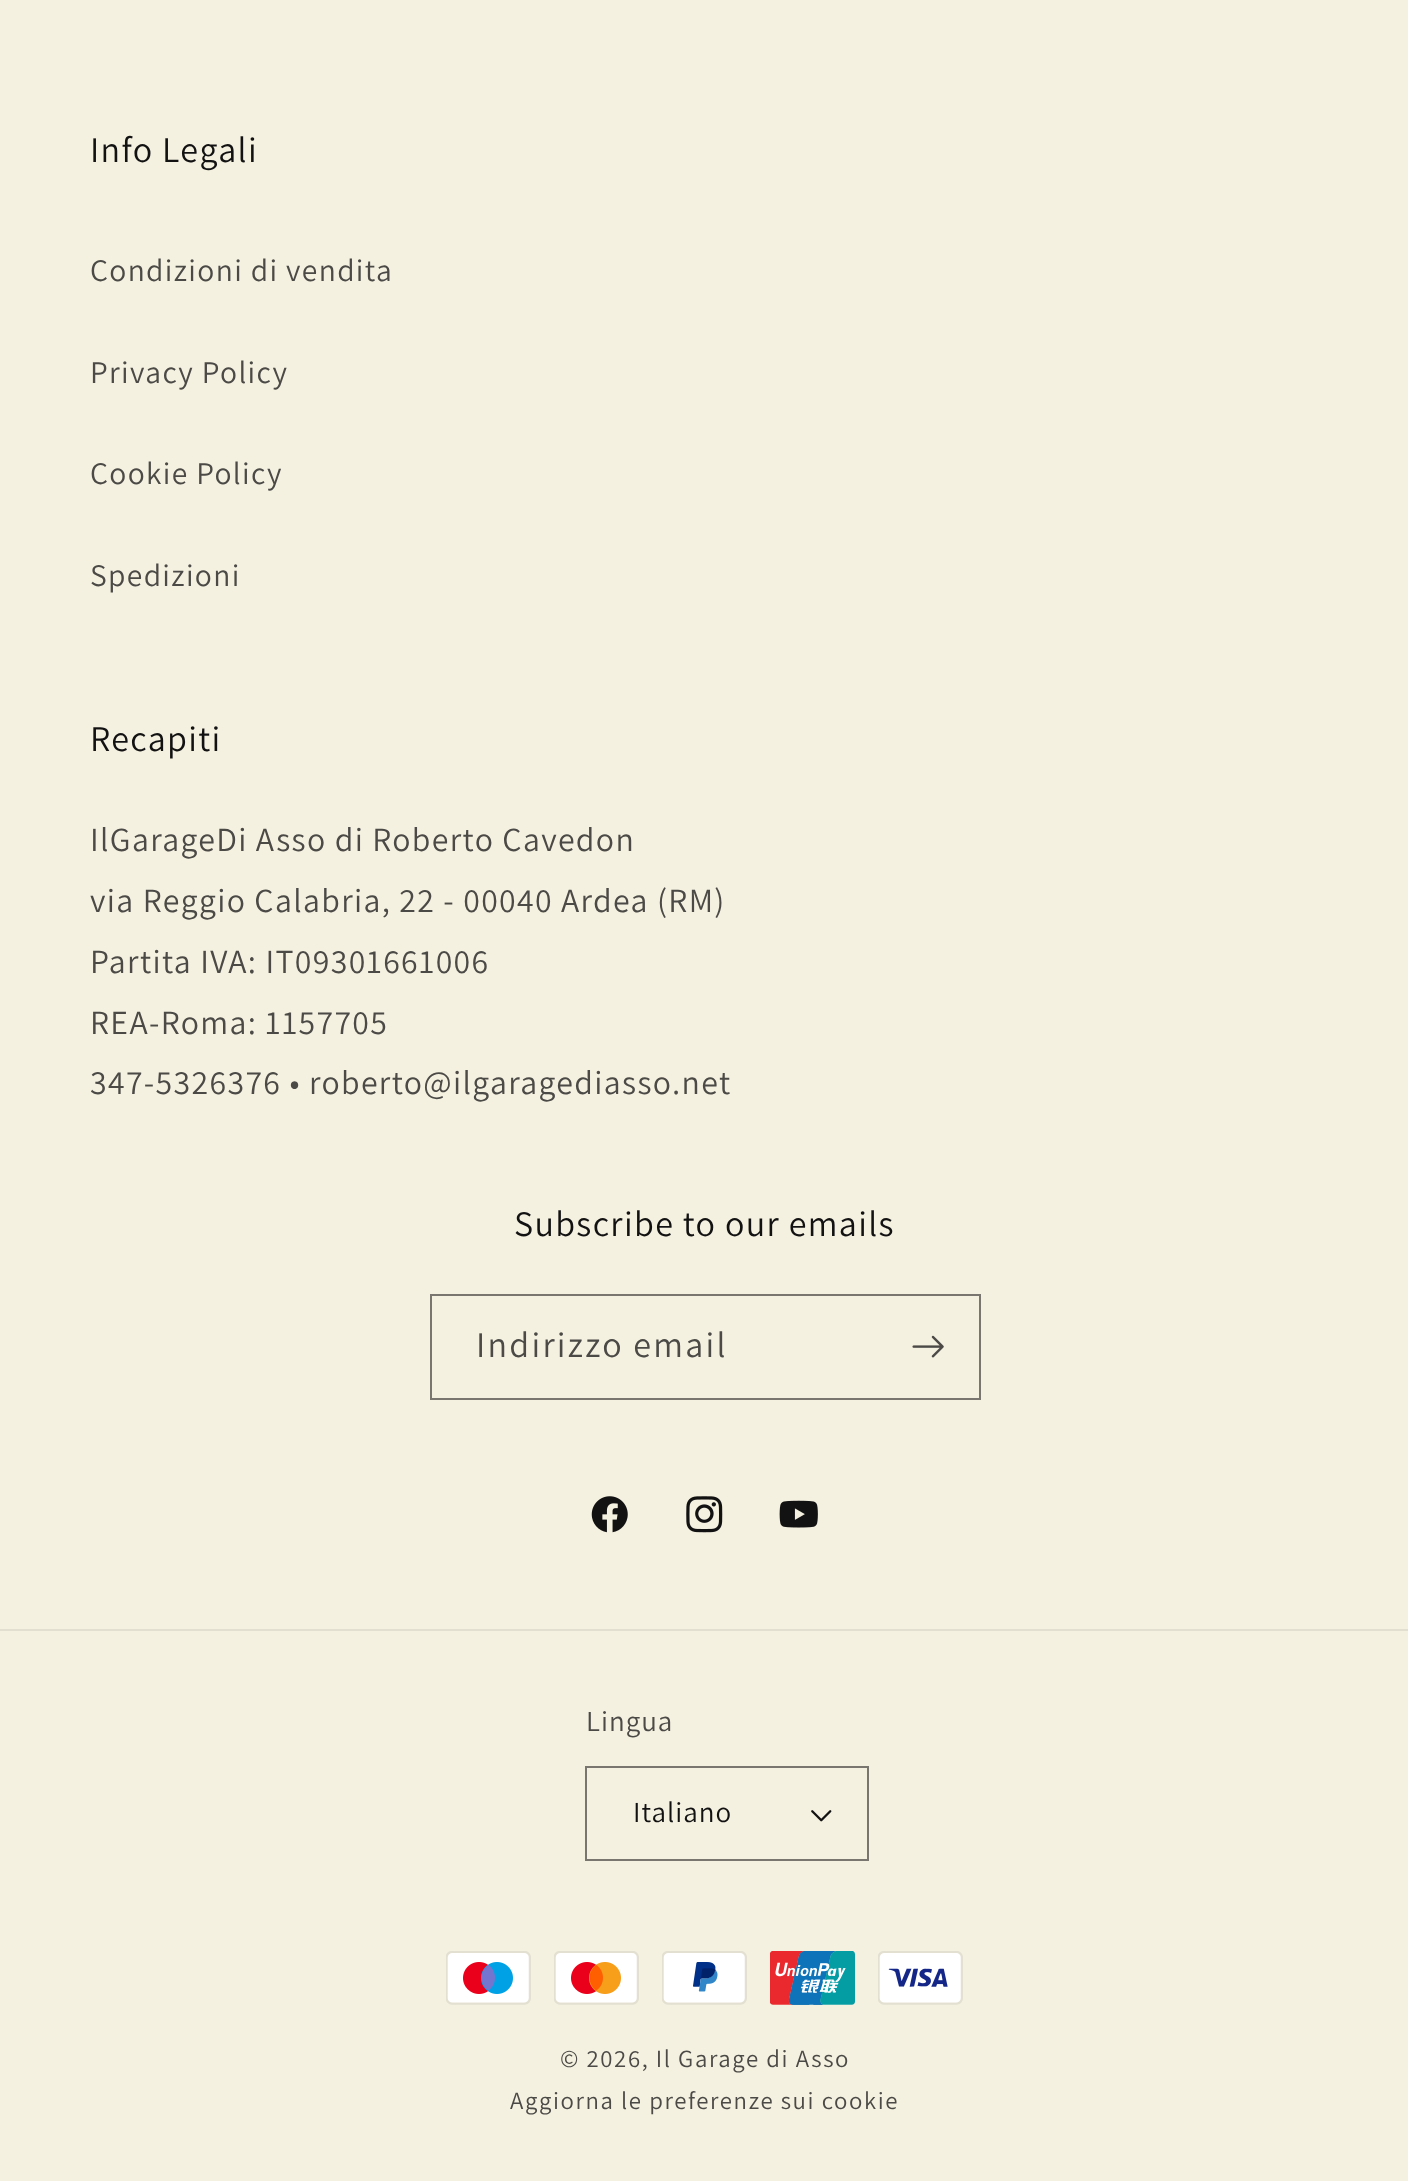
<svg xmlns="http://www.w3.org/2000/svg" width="1408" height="2181">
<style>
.a{font:36px Assistant;letter-spacing:1.35px;fill:#121212}
.b{font:31.5px Assistant;letter-spacing:1.35px;fill:#4b4a46}
.c{font:33.75px Assistant;letter-spacing:1.35px;fill:#4b4a46}
.d{font:36px Assistant;letter-spacing:2.25px;fill:#4b4a46}
.e{font:29px Assistant;letter-spacing:1px;fill:#4b4a46}
.f{font:29px Assistant;letter-spacing:1px;fill:#121212}
.g{font:24.75px Assistant;letter-spacing:1.6px;fill:#4b4a46}
</style>
<rect width="100%" height="100%" fill="#f5f1e1"/>
<path fill="none" stroke="#78766f" stroke-width="2" d="M431 1295h549v104H431z"/>
<image href="1.png" x="912" y="1335" width="32" height="23"/>
<image href="2.png" x="591" y="1496" width="37" height="37"/>
<image href="3.png" x="686" y="1496" width="37" height="37"/>
<image href="4.png" x="779" y="1500" width="39" height="28"/>
<path fill="#e3dfd0" d="M0 1629h1408v2H0z"/>
<image href="5.png" x="811" y="1810" width="21" height="12"/>
<path fill="none" stroke="#78766f" stroke-width="2" d="M586 1767h282v93H586z"/>
<image href="6.png" x="446" y="1951" width="85" height="54"/>
<image href="7.png" x="554" y="1951" width="85" height="54"/>
<image href="8.png" x="662" y="1951" width="85" height="54"/>
<image href="9.png" x="770" y="1951" width="85" height="54"/>
<image href="10.png" x="878" y="1951" width="85" height="54"/>
<text class="a" x="90" y="162">Info Legali</text>
<text class="b" x="90" y="281">Condizioni di vendita</text>
<text class="b" x="90" y="383">Privacy Policy</text>
<text class="b" x="90" y="484">Cookie Policy</text>
<text class="b" x="90" y="586">Spedizioni</text>
<text class="a" x="90" y="751">Recapiti</text>
<text class="c" x="90" y="851">IlGarageDi Asso di Roberto Cavedon</text>
<text class="c" x="90" y="912">via Reggio Calabria, 22 - 00040 Ardea (RM)</text>
<text class="c" x="90" y="973">Partita IVA: IT09301661006</text>
<text class="c" x="90" y="1034">REA-Roma: 1157705</text>
<text class="c" x="90" y="1094">347-5326376 • roberto@ilgaragediasso.net</text>
<text class="a" x="514" y="1236">Subscribe to our emails</text>
<text class="d" x="476" y="1357">Indirizzo email</text>
<text class="e" x="586" y="1731">Lingua</text>
<text class="f" x="633" y="1822">Italiano</text>
<text class="g" x="560" y="2067">© 2026, Il Garage di Asso</text>
<text class="g" x="510" y="2109">Aggiorna le preferenze sui cookie</text>
</svg>
